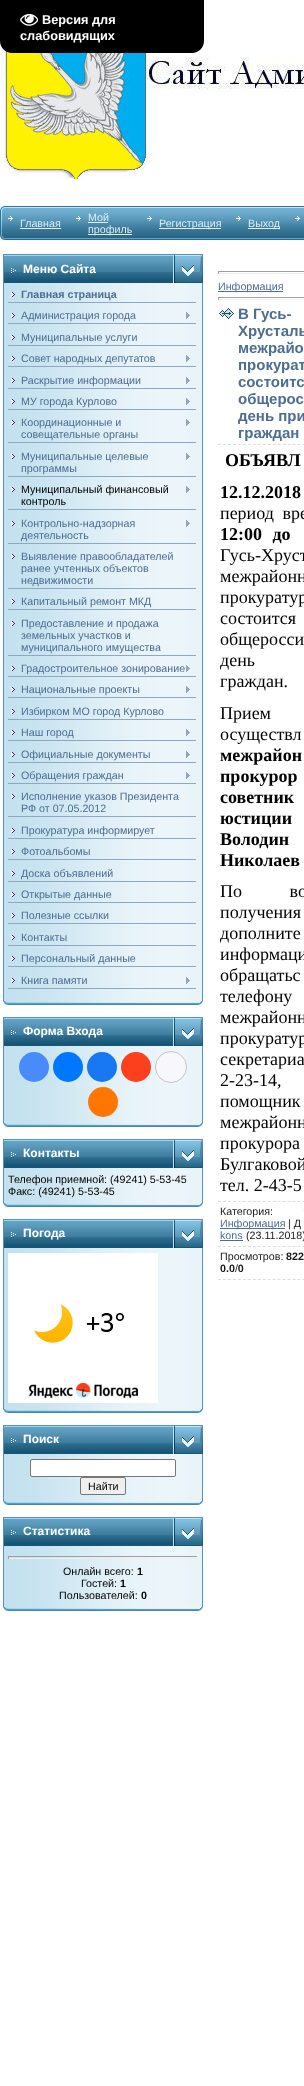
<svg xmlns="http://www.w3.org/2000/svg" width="304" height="2086">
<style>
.a{font:bold 12.75px Liberation Sans;fill:#fff}
.b{font:10.7px Liberation Sans;fill:#ddeef7}
.c{font:bold 12px Liberation Sans;fill:#fff}
.d{font:bold 10.7px Liberation Sans;fill:#4d6d91}
.e{font:10.7px Liberation Sans;fill:#4d6d91}
.f{font:10.7px Liberation Sans;fill:#000}
.g{font:bold 10.7px Liberation Sans;fill:#000}
.h{font:bold 15px Liberation Sans;fill:#4d6d91}
.i{font:bold 18px Liberation Serif;fill:#000}
.j{font:18px Liberation Serif;fill:#000}
.k{font:10.7px Liberation Sans;fill:#1a1a1a}
.l{font:bold 10.7px Liberation Sans;fill:#1a1a1a}
</style>
<rect width="100%" height="100%" fill="#fff"/>
<image href="1.png" x="1" y="9" width="303" height="170"/>
<path fill="#000" d="M0 0h204v41c0 6.5-5.5 12-12 12h-180c-6.5 0-12-5.5-12-12z"/>
<image href="2.png" x="20" y="13" width="18" height="13"/>
<image href="3.png" x="0" y="206" width="5" height="34"/>
<image href="4.png" x="5" y="206" width="299" height="34"/>
<image href="5.png" x="76" y="216" width="5" height="5"/>
<path fill="#ddeef7" d="M88 222h20v1H88z"/>
<path fill="#ddeef7" d="M88 234h44v1H88z"/>
<image href="5.png" x="295" y="216" width="5" height="5"/>
<image href="5.png" x="8" y="216" width="5" height="5"/>
<path fill="#ddeef7" d="M20 228h41v1H20z"/>
<image href="5.png" x="147" y="216" width="5" height="5"/>
<path fill="#ddeef7" d="M159 228h62v1H159z"/>
<image href="5.png" x="236" y="216" width="5" height="5"/>
<path fill="#ddeef7" d="M248 228h32v1H248z"/>
<image href="6.png" x="4" y="254" width="169" height="29"/>
<path fill="#5694b5" d="M3 254h1v29H3z"/>
<image href="7.png" x="11" y="268" width="5" height="5"/>
<image href="8.png" x="173" y="254" width="30" height="1"/>
<image href="9.png" x="173" y="255" width="30" height="28"/>
<image href="10.png" x="3" y="283" width="200" height="717"/>
<image href="11.png" x="11" y="292" width="4" height="5"/>
<path fill="#8ea8c4" d="M8 302h188v1H8z"/>
<image href="11.png" x="11" y="313" width="4" height="5"/>
<path fill="#8ea8c4" d="M8 323h188v1H8z"/>
<image href="12.png" x="186" y="312" width="4" height="7"/>
<image href="11.png" x="11" y="335" width="4" height="5"/>
<path fill="#8ea8c4" d="M8 345h188v1H8z"/>
<image href="11.png" x="11" y="356" width="4" height="5"/>
<path fill="#8ea8c4" d="M8 366h188v1H8z"/>
<image href="12.png" x="186" y="355" width="4" height="7"/>
<image href="11.png" x="11" y="378" width="4" height="5"/>
<path fill="#8ea8c4" d="M8 388h188v1H8z"/>
<image href="12.png" x="186" y="377" width="4" height="7"/>
<image href="11.png" x="11" y="399" width="4" height="5"/>
<path fill="#8ea8c4" d="M8 409h188v1H8z"/>
<image href="12.png" x="186" y="398" width="4" height="7"/>
<image href="11.png" x="11" y="420" width="4" height="5"/>
<path fill="#8ea8c4" d="M8 442h188v1H8z"/>
<image href="12.png" x="186" y="419" width="4" height="7"/>
<image href="11.png" x="11" y="454" width="4" height="5"/>
<path fill="#8ea8c4" d="M8 476h188v1H8z"/>
<image href="12.png" x="186" y="453" width="4" height="7"/>
<image href="11.png" x="11" y="487" width="4" height="5"/>
<path fill="#8ea8c4" d="M8 509h188v1H8z"/>
<image href="12.png" x="186" y="486" width="4" height="7"/>
<image href="11.png" x="11" y="521" width="4" height="5"/>
<path fill="#8ea8c4" d="M8 543h188v1H8z"/>
<image href="12.png" x="186" y="520" width="4" height="7"/>
<image href="11.png" x="11" y="554" width="4" height="5"/>
<path fill="#8ea8c4" d="M8 588h188v1H8z"/>
<image href="11.png" x="11" y="599" width="4" height="5"/>
<path fill="#8ea8c4" d="M8 609h188v1H8z"/>
<image href="11.png" x="11" y="621" width="4" height="5"/>
<path fill="#8ea8c4" d="M8 655h188v1H8z"/>
<image href="11.png" x="11" y="666" width="4" height="5"/>
<path fill="#8ea8c4" d="M8 676h188v1H8z"/>
<image href="12.png" x="186" y="665" width="4" height="7"/>
<image href="11.png" x="11" y="687" width="4" height="5"/>
<path fill="#8ea8c4" d="M8 697h188v1H8z"/>
<image href="12.png" x="186" y="686" width="4" height="7"/>
<image href="11.png" x="11" y="709" width="4" height="5"/>
<path fill="#8ea8c4" d="M8 719h188v1H8z"/>
<image href="11.png" x="11" y="730" width="4" height="5"/>
<path fill="#8ea8c4" d="M8 740h188v1H8z"/>
<image href="12.png" x="186" y="729" width="4" height="7"/>
<image href="11.png" x="11" y="752" width="4" height="5"/>
<path fill="#8ea8c4" d="M8 762h188v1H8z"/>
<image href="12.png" x="186" y="751" width="4" height="7"/>
<image href="11.png" x="11" y="773" width="4" height="5"/>
<path fill="#8ea8c4" d="M8 783h188v1H8z"/>
<image href="12.png" x="186" y="772" width="4" height="7"/>
<image href="11.png" x="11" y="794" width="4" height="5"/>
<path fill="#8ea8c4" d="M8 816h188v1H8z"/>
<image href="11.png" x="11" y="828" width="4" height="5"/>
<path fill="#8ea8c4" d="M8 838h188v1H8z"/>
<image href="11.png" x="11" y="849" width="4" height="5"/>
<path fill="#8ea8c4" d="M8 859h188v1H8z"/>
<image href="11.png" x="11" y="871" width="4" height="5"/>
<path fill="#8ea8c4" d="M8 881h188v1H8z"/>
<image href="11.png" x="11" y="892" width="4" height="5"/>
<path fill="#8ea8c4" d="M8 902h188v1H8z"/>
<image href="11.png" x="11" y="913" width="4" height="5"/>
<path fill="#8ea8c4" d="M8 923h188v1H8z"/>
<image href="11.png" x="11" y="935" width="4" height="5"/>
<path fill="#8ea8c4" d="M8 945h188v1H8z"/>
<image href="11.png" x="11" y="956" width="4" height="5"/>
<path fill="#8ea8c4" d="M8 966h188v1H8z"/>
<image href="11.png" x="11" y="978" width="4" height="5"/>
<path fill="#8ea8c4" d="M8 988h188v1H8z"/>
<image href="12.png" x="186" y="977" width="4" height="7"/>
<image href="13.png" x="3" y="1000" width="200" height="5"/>
<image href="6.png" x="4" y="1017" width="169" height="29"/>
<path fill="#5694b5" d="M3 1017h1v29H3z"/>
<image href="14.png" x="11" y="1030" width="5" height="5"/>
<image href="8.png" x="173" y="1017" width="30" height="1"/>
<image href="9.png" x="173" y="1018" width="30" height="28"/>
<image href="15.png" x="3" y="1046" width="200" height="76"/>
<circle fill="#498bfa" cx="34" cy="1067" r="15"/>
<circle fill="#07f" cx="68" cy="1067" r="15"/>
<circle fill="#1877f2" cx="102" cy="1067" r="15"/>
<circle fill="#fc3f1d" cx="136" cy="1067" r="15"/>
<circle fill="#f8f8fc" stroke="#c4c4c4" cx="171" cy="1067" r="15.5"/>
<circle fill="#f70" cx="103" cy="1102" r="15"/>
<image href="13.png" x="3" y="1122" width="200" height="5"/>
<image href="6.png" x="4" y="1139" width="169" height="29"/>
<path fill="#5694b5" d="M3 1139h1v29H3z"/>
<image href="14.png" x="11" y="1152" width="5" height="5"/>
<image href="8.png" x="173" y="1139" width="30" height="1"/>
<image href="9.png" x="173" y="1140" width="30" height="28"/>
<image href="16.png" x="3" y="1168" width="200" height="34"/>
<image href="13.png" x="3" y="1202" width="200" height="5"/>
<image href="6.png" x="4" y="1219" width="169" height="29"/>
<path fill="#5694b5" d="M3 1219h1v29H3z"/>
<image href="14.png" x="11" y="1232" width="5" height="5"/>
<image href="8.png" x="173" y="1219" width="30" height="1"/>
<image href="9.png" x="173" y="1220" width="30" height="28"/>
<image href="17.png" x="3" y="1248" width="200" height="160"/>
<image href="18.png" x="8" y="1253" width="150" height="150"/>
<image href="13.png" x="3" y="1408" width="200" height="5"/>
<image href="6.png" x="4" y="1425" width="169" height="29"/>
<path fill="#5694b5" d="M3 1425h1v29H3z"/>
<image href="14.png" x="11" y="1438" width="5" height="5"/>
<image href="8.png" x="173" y="1425" width="30" height="1"/>
<image href="9.png" x="173" y="1426" width="30" height="28"/>
<image href="19.png" x="3" y="1454" width="200" height="46"/>
<rect fill="#fff" stroke="#767676" x="30.5" y="1459.5" width="145" height="17" rx="1.5"/>
<rect fill="#efefef" stroke="#767676" x="80.5" y="1477.5" width="45" height="17" rx="1.5"/>
<image href="13.png" x="3" y="1500" width="200" height="5"/>
<image href="6.png" x="4" y="1517" width="169" height="29"/>
<path fill="#5694b5" d="M3 1517h1v29H3z"/>
<image href="14.png" x="11" y="1530" width="5" height="5"/>
<image href="8.png" x="173" y="1517" width="30" height="1"/>
<image href="9.png" x="173" y="1518" width="30" height="28"/>
<image href="20.png" x="3" y="1546" width="200" height="60"/>
<path fill="#9f9f9f" d="M8 1556h190v1H8z"/>
<path fill="#eee" d="M197 1556h1v3H197z"/>
<path fill="#eee" d="M8 1558h190v1H8z"/>
<path fill="#9f9f9f" d="M8 1556h1v3H8z"/>
<image href="13.png" x="3" y="1606" width="200" height="5"/>
<path fill="#9f9f9f" d="M218 271h86v1H218z"/>
<path fill="#eee" d="M218 273h86v1H218z"/>
<path fill="#9f9f9f" d="M218 271h1v3H218z"/>
<path fill="#4d6d91" d="M218 291h65v1H218z"/>
<path fill="#9f9f9f" d="M218 297h86v1H218z"/>
<path fill="#eee" d="M218 299h86v1H218z"/>
<path fill="#9f9f9f" d="M218 297h1v3H218z"/>
<image href="21.png" x="219" y="308" width="15" height="11"/>
<path fill="none" stroke="#ddd" stroke-dasharray="3 1.97" d="M218 444.5h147"/>
<path fill="none" stroke="#ddd" stroke-dasharray="3 1.97" d="M218 1201.5h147"/>
<path fill="none" stroke="#ddd" stroke-dasharray="3 1.97" d="M218 1246.5h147"/>
<image href="22.png" x="303" y="1209" width="1" height="2"/>
<path fill="#4d6d91" d="M220 1228h65v1H220z"/>
<path fill="#4d6d91" d="M220 1240h23v1H220z"/>
<path fill="none" stroke="#ddd" stroke-dasharray="3 1.97" d="M218 1279.5h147"/>
<text class="a" x="42" y="24">Версия для</text>
<text class="a" x="20" y="40">слабовидящих</text>
<text class="b" x="88" y="221">Мой</text>
<text class="b" x="88" y="233">профиль</text>
<text class="b" x="20" y="227">Главная</text>
<text class="b" x="159" y="227">Регистрация</text>
<text class="b" x="248" y="227">Выход</text>
<text class="c" x="23" y="273">Меню Сайта</text>
<text class="d" x="21" y="298">Главная страница</text>
<text class="e" x="21" y="319">Администрация города</text>
<text class="e" x="21" y="341">Муниципальные услуги</text>
<text class="e" x="21" y="362">Совет народных депутатов</text>
<text class="e" x="21" y="384">Раскрытие информации</text>
<text class="e" x="21" y="405">МУ города Курлово</text>
<text class="e" x="21" y="426">Координационные и</text>
<text class="e" x="21" y="438">совещательные органы</text>
<text class="e" x="21" y="460">Муниципальные целевые</text>
<text class="e" x="21" y="472">программы</text>
<text class="f" x="21" y="493">Муниципальный финансовый</text>
<text class="f" x="21" y="505">контроль</text>
<text class="e" x="21" y="527">Контрольно-надзорная</text>
<text class="e" x="21" y="539">деятельность</text>
<text class="e" x="21" y="560">Выявление правообладателей</text>
<text class="e" x="21" y="572">ранее учтенных объектов</text>
<text class="e" x="21" y="584">недвижимости</text>
<text class="e" x="21" y="605">Капитальный ремонт МКД</text>
<text class="e" x="21" y="627">Предоставление и продажа</text>
<text class="e" x="21" y="639">земельных участков и</text>
<text class="e" x="21" y="651">муниципального имущества</text>
<text class="e" x="21" y="672">Градостроительное зонирование</text>
<text class="e" x="21" y="693">Национальные проекты</text>
<text class="e" x="21" y="715">Избирком МО город Курлово</text>
<text class="e" x="21" y="736">Наш город</text>
<text class="e" x="21" y="758">Официальные документы</text>
<text class="e" x="21" y="779">Обращения граждан</text>
<text class="e" x="21" y="800">Исполнение указов Президента</text>
<text class="e" x="21" y="812">РФ от 07.05.2012</text>
<text class="e" x="21" y="834">Прокуратура информирует</text>
<text class="e" x="21" y="855">Фотоальбомы</text>
<text class="e" x="21" y="877">Доска объявлений</text>
<text class="e" x="21" y="898">Открытые данные</text>
<text class="e" x="21" y="919">Полезные ссылки</text>
<text class="e" x="21" y="941">Контакты</text>
<text class="e" x="21" y="962">Персональный данные</text>
<text class="e" x="21" y="984">Книга памяти</text>
<text class="c" x="23" y="1035">Форма Входа</text>
<text class="c" x="23" y="1157">Контакты</text>
<text class="f" x="8" y="1183">Телефон приемной: (49241) 5-53-45</text>
<text class="f" x="8" y="1195">Факс: (49241) 5-53-45</text>
<text class="c" x="23" y="1237">Погода</text>
<text class="c" x="23" y="1443">Поиск</text>
<text class="f" x="88" y="1490">Найти</text>
<text class="c" x="23" y="1535">Статистика</text>
<text class="f" x="63" y="1575">Онлайн всего:</text>
<text class="g" x="137" y="1575">1</text>
<text class="f" x="81" y="1587">Гостей:</text>
<text class="g" x="120" y="1587">1</text>
<text class="f" x="59" y="1599">Пользователей:</text>
<text class="g" x="141" y="1599">0</text>
<text class="e" x="218" y="290">Информация</text>
<text class="h" x="238" y="319">В Гусь-</text>
<text class="h" x="238" y="336">Хрусталь</text>
<text class="h" x="238" y="353">межрайо</text>
<text class="h" x="238" y="370">прокурат</text>
<text class="h" x="238" y="387">состоитс</text>
<text class="h" x="238" y="404">общерос</text>
<text class="h" x="238" y="421">день при</text>
<text class="h" x="238" y="438">граждан</text>
<text class="i" x="225" y="466">ОБЪЯВЛ</text>
<text class="i" x="220" y="498">12.12.2018</text>
<text class="j" x="220" y="519" word-spacing="4">период вре</text>
<text class="i" x="220" y="540" word-spacing="6">12:00 до</text>
<text class="j" x="220" y="561">Гусь-Хруст</text>
<text class="j" x="220" y="582">межрайонн</text>
<text class="j" x="220" y="603">прокуратур</text>
<text class="j" x="220" y="624">состоится</text>
<text class="j" x="220" y="645">общеросси</text>
<text class="j" x="220" y="666" word-spacing="48">день</text>
<text class="j" x="220" y="687">граждан.</text>
<text class="j" x="220" y="719" word-spacing="46">Прием</text>
<text class="j" x="220" y="740">осуществл</text>
<text class="i" x="220" y="761">межрайон</text>
<text class="i" x="220" y="782">прокурор</text>
<text class="i" x="220" y="803">советник</text>
<text class="i" x="220" y="824">юстиции</text>
<text class="i" x="220" y="845" word-spacing="10">Володин</text>
<text class="i" x="220" y="866">Николаев</text>
<text class="j" x="220" y="897" word-spacing="43">По во</text>
<text class="j" x="220" y="918">получения</text>
<text class="j" x="220" y="939">дополните</text>
<text class="j" x="220" y="960">информаци</text>
<text class="j" x="220" y="981" word-spacing="31">обращатьс</text>
<text class="j" x="220" y="1002">телефону</text>
<text class="j" x="220" y="1023">межрайонн</text>
<text class="j" x="220" y="1044" word-spacing="31">прокуратур</text>
<text class="j" x="220" y="1065" word-spacing="17">секретариа</text>
<text class="j" x="220" y="1086">2-23-14,</text>
<text class="j" x="220" y="1107">помощник</text>
<text class="j" x="220" y="1128">межрайонн</text>
<text class="j" x="220" y="1149">прокурора</text>
<text class="j" x="220" y="1170" word-spacing="19">Булгаковой</text>
<text class="j" x="220" y="1191">тел. 2-43-5</text>
<text class="k" x="220" y="1215">Категория:</text>
<text class="e" x="220" y="1227">Информация</text>
<text class="k" x="288" y="1227">| Д</text>
<text class="e" x="220" y="1239">kons</text>
<text class="k" x="246" y="1239">(23.11.2018)</text>
<text class="k" x="220" y="1260">Просмотров:</text>
<text class="l" x="286" y="1260">822</text>
<text class="l" x="220" y="1272">0.0 0</text>
<text class="k" x="235" y="1272">/</text>
</svg>
